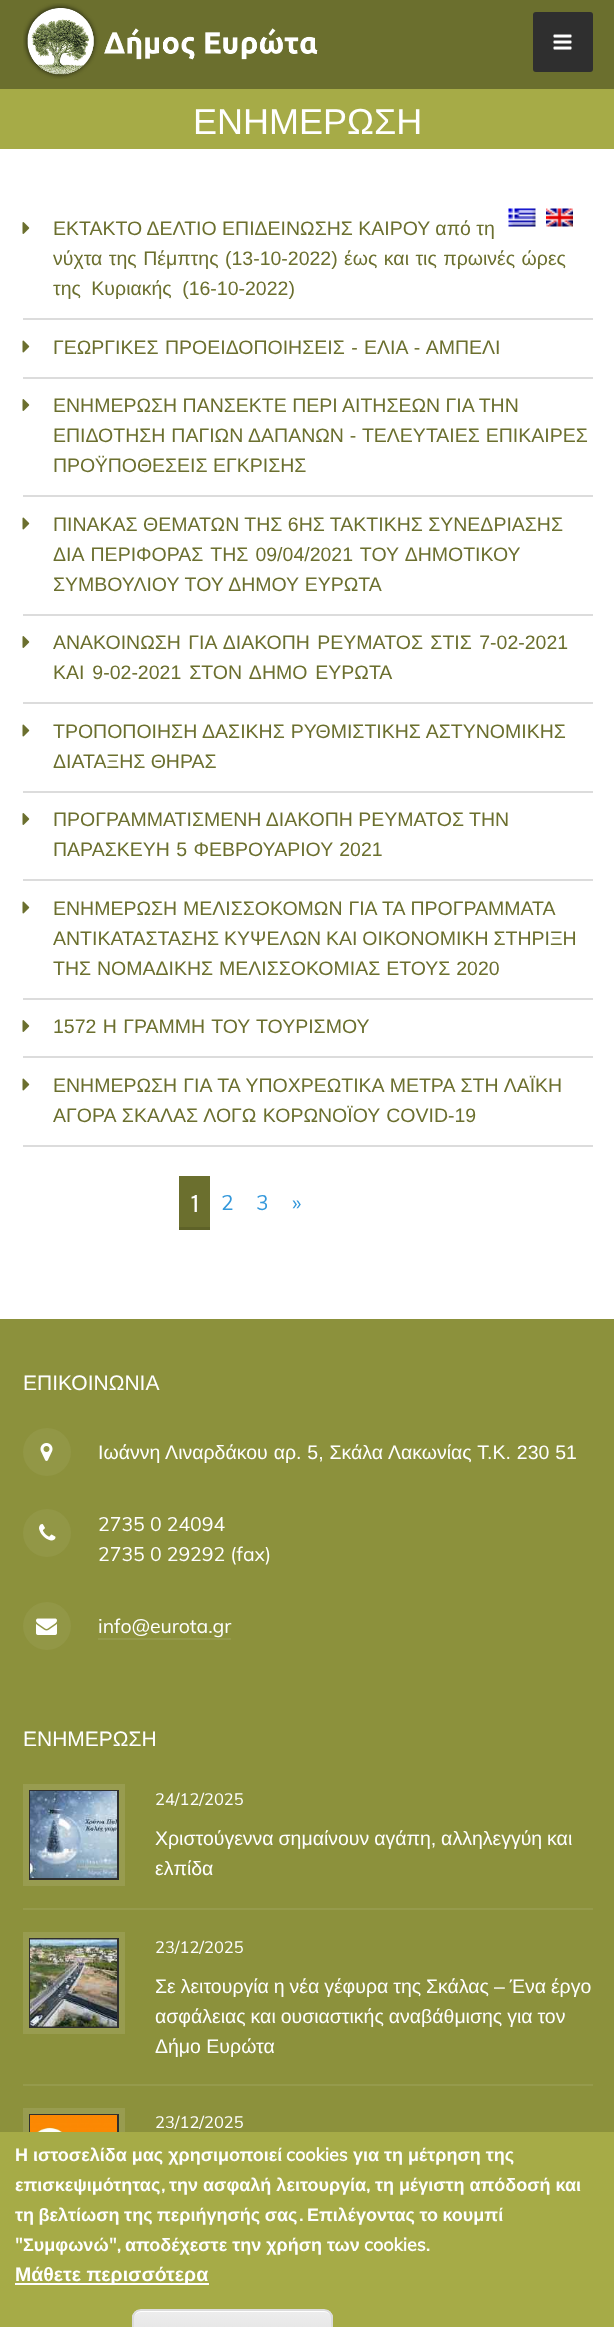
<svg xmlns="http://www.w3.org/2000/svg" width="614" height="2327">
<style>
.a{font:36px Liberation Sans;fill:#fff}
.b{font:19.5px Liberation Sans;fill:#6b6f2e}
.c{font:21px Oswald;fill:#fff}
.d{font:21px Muli;fill:#3498db}
.e{font:21px Liberation Sans;fill:#fff}
.f{font:19.5px Liberation Sans;fill:#fff}
.g{font:19.5px Muli;fill:#fff}
.h{font:16.5px Muli;fill:#fff}
.i{font:bold 18px Liberation Sans;fill:#fff}
.j{font:bold 18px Muli;fill:#fff}
.k{font:bold 19.5px Liberation Sans;fill:#fff}
</style>
<defs>
<clipPath id="clip1"><rect x="132" y="2309" width="201" height="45" rx="9"/></clipPath>
<linearGradient id="g1" gradientUnits="userSpaceOnUse" x1="233" y1="2310" x2="233" y2="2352"><stop offset="0.05" stop-color="#ededed"/><stop offset="1" stop-color="#dfdfdf"/></linearGradient>
</defs>
<rect width="100%" height="100%" fill="#fff"/>
<path fill="#6b6f2e" d="M0 0h614v89H0z"/>
<image href="1.png" x="23" y="3" width="295" height="76"/>
<rect fill="#2f2f2f" x="533" y="12" width="60" height="60" rx="3"/>
<image href="2.png" x="553" y="34" width="19" height="16"/>
<path fill="#a6ab47" d="M0 89h614v60H0z"/>
<image href="3.png" x="508" y="208" width="28" height="19"/>
<image href="4.png" x="546" y="208" width="27" height="19"/>
<path fill="#dcdcdc" d="M23 318h570v2H23z"/>
<image href="5.png" x="22" y="222" width="8" height="12"/>
<path fill="#dcdcdc" d="M23 377h570v2H23z"/>
<image href="6.png" x="22" y="340" width="8" height="13"/>
<path fill="#dcdcdc" d="M23 495h570v2H23z"/>
<image href="5.png" x="22" y="399" width="8" height="12"/>
<path fill="#dcdcdc" d="M23 614h570v2H23z"/>
<image href="6.png" x="22" y="517" width="8" height="13"/>
<path fill="#dcdcdc" d="M23 702h570v2H23z"/>
<image href="5.png" x="22" y="636" width="8" height="12"/>
<path fill="#dcdcdc" d="M23 791h570v2H23z"/>
<image href="6.png" x="22" y="724" width="8" height="13"/>
<path fill="#dcdcdc" d="M23 879h570v2H23z"/>
<image href="5.png" x="22" y="813" width="8" height="12"/>
<path fill="#dcdcdc" d="M23 998h570v2H23z"/>
<image href="6.png" x="22" y="901" width="8" height="13"/>
<path fill="#dcdcdc" d="M23 1056h570v2H23z"/>
<image href="5.png" x="22" y="1020" width="8" height="12"/>
<path fill="#dcdcdc" d="M23 1145h570v2H23z"/>
<image href="6.png" x="22" y="1078" width="8" height="13"/>
<path fill="#6b6f2e" d="M179 1176h31v51H179z"/>
<path fill="#5e6228" d="M179 1227h33v3H179z"/>
<path fill="#fff" d="M210 1227h2v3H210z"/>
<path fill="#8c913c" d="M0 1319h614v813H0z"/>
<circle fill="#929746" cx="47" cy="1452" r="24"/>
<image href="7.png" x="40" y="1443" width="13" height="18"/>
<circle fill="#929746" cx="47" cy="1533" r="24"/>
<image href="8.png" x="39" y="1524" width="17" height="17"/>
<circle fill="#929746" cx="47" cy="1626" r="24"/>
<image href="9.png" x="36" y="1618" width="21" height="17"/>
<path fill="#959a4c" d="M98 1638h133v2H98z"/>
<path fill="#989c50" d="M23 1784h102v102H23z"/>
<path fill="none" stroke="#2f2f2f" stroke-width="2" d="M30 1791h88v88H30z"/>
<image href="10.png" x="30" y="1791" width="87" height="87"/>
<path fill="#959a4c" d="M23 1908h570v2H23z"/>
<path fill="#989c50" d="M23 1932h102v102H23z"/>
<path fill="none" stroke="#2f2f2f" stroke-width="2" d="M30 1939h88v88H30z"/>
<image href="11.png" x="30" y="1939" width="87" height="88"/>
<path fill="#959a4c" d="M23 2084h570v2H23z"/>
<path fill="#989c50" d="M23 2108h102v24H23z"/>
<path fill="none" stroke="#2f2f2f" stroke-width="2" d="M30 2115h88v88H30z"/>
<image href="12.png" x="30" y="2115" width="87" height="17"/>
<path fill="#a6ab47" d="M0 2132h614v195H0z"/>
<path fill="#fff" d="M15 2283h194v2H15z"/>
<g clip-path="url(#clip1)">
<path fill="url(#g1)" d="M132 2310h201v17H132z"/>
</g>
<path fill="#fff" d="M141 2312h183c4 0 8 3 8 7v-1c0-4-4-8-8-8h-182c-4 0-8 4-8 8v1c0-4 3-7 7-7z"/>
<rect fill="none" stroke="#dcdcdc" stroke-width="2" x="133" y="2310" width="199" height="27" rx="8"/>
<text class="a" x="193" y="134">ΕΝΗΜΕΡΩΣΗ</text>
<text class="b" x="53" y="235">ΕΚΤΑΚΤΟ ΔΕΛΤΙΟ ΕΠΙΔΕΙΝΩΣΗΣ ΚΑΙΡΟΥ από τη</text>
<text class="b" x="53" y="265" word-spacing="1">νύχτα της Πέμπτης (13-10-2022) έως και τις πρωινές ώρες</text>
<text class="b" x="53" y="295" word-spacing="5">της Κυριακής (16-10-2022)</text>
<text class="b" x="53" y="354" word-spacing="1">ΓΕΩΡΓΙΚΕΣ ΠΡΟΕΙΔΟΠΟΙΗΣΕΙΣ - ΕΛΙΑ - ΑΜΠΕΛΙ</text>
<text class="b" x="53" y="412">ΕΝΗΜΕΡΩΣΗ ΠΑΝΣΕΚΤΕ ΠΕΡΙ ΑΙΤΗΣΕΩΝ ΓΙΑ ΤΗΝ</text>
<text class="b" x="53" y="442" word-spacing="0.5">ΕΠΙΔΟΤΗΣΗ ΠΑΓΙΩΝ ΔΑΠΑΝΩΝ - ΤΕΛΕΥΤΑΙΕΣ ΕΠΙΚΑΙΡΕΣ</text>
<text class="b" x="53" y="472">ΠΡΟΫΠΟΘΕΣΕΙΣ ΕΓΚΡΙΣΗΣ</text>
<text class="b" x="53" y="531">ΠΙΝΑΚΑΣ ΘΕΜΑΤΩΝ ΤΗΣ 6ΗΣ ΤΑΚΤΙΚΗΣ ΣΥΝΕΔΡΙΑΣΗΣ</text>
<text class="b" x="53" y="561" word-spacing="1.75">ΔΙΑ ΠΕΡΙΦΟΡΑΣ ΤΗΣ 09/04/2021 ΤΟΥ ΔΗΜΟΤΙΚΟΥ</text>
<text class="b" x="53" y="591" word-spacing="0.5">ΣΥΜΒΟΥΛΙΟΥ ΤΟΥ ΔΗΜΟΥ ΕΥΡΩΤΑ</text>
<text class="b" x="53" y="649" word-spacing="2">ΑΝΑΚΟΙΝΩΣΗ ΓΙΑ ΔΙΑΚΟΠΗ ΡΕΥΜΑΤΟΣ ΣΤΙΣ 7-02-2021</text>
<text class="b" x="53" y="679" word-spacing="2.5">ΚΑΙ 9-02-2021 ΣΤΟΝ ΔΗΜΟ ΕΥΡΩΤΑ</text>
<text class="b" x="53" y="738" word-spacing="0.5">ΤΡΟΠΟΠΟΙΗΣΗ ΔΑΣΙΚΗΣ ΡΥΘΜΙΣΤΙΚΗΣ ΑΣΤΥΝΟΜΙΚΗΣ</text>
<text class="b" x="53" y="768">ΔΙΑΤΑΞΗΣ ΘΗΡΑΣ</text>
<text class="b" x="53" y="826">ΠΡΟΓΡΑΜΜΑΤΙΣΜΕΝΗ ΔΙΑΚΟΠΗ ΡΕΥΜΑΤΟΣ ΤΗΝ</text>
<text class="b" x="53" y="856" word-spacing="1">ΠΑΡΑΣΚΕΥΗ 5 ΦΕΒΡΟΥΑΡΙΟΥ 2021</text>
<text class="b" x="53" y="915" word-spacing="0.5">ΕΝΗΜΕΡΩΣΗ ΜΕΛΙΣΣΟΚΟΜΩΝ ΓΙΑ ΤΑ ΠΡΟΓΡΑΜΜΑΤΑ</text>
<text class="b" x="53" y="945" word-spacing="-0.5">ΑΝΤΙΚΑΤΑΣΤΑΣΗΣ ΚΥΨΕΛΩΝ ΚΑΙ ΟΙΚΟΝΟΜΙΚΗ ΣΤΗΡΙΞΗ</text>
<text class="b" x="53" y="975" word-spacing="0.5">ΤΗΣ ΝΟΜΑΔΙΚΗΣ ΜΕΛΙΣΣΟΚΟΜΙΑΣ ΕΤΟΥΣ 2020</text>
<text class="b" x="53" y="1033" word-spacing="1">1572 Η ΓΡΑΜΜΗ ΤΟΥ ΤΟΥΡΙΣΜΟΥ</text>
<text class="b" x="53" y="1092" word-spacing="0.75">ΕΝΗΜΕΡΩΣΗ ΓΙΑ ΤΑ ΥΠΟΧΡΕΩΤΙΚΑ ΜΕΤΡΑ ΣΤΗ ΛΑΪΚΗ</text>
<text class="b" x="53" y="1122" word-spacing="1">ΑΓΟΡΑ ΣΚΑΛΑΣ ΛΟΓΩ ΚΟΡΩΝΟΪΟΥ COVID-19</text>
<text class="c" x="191" y="1212">1</text>
<text class="d" x="221" y="1210">2</text>
<text class="d" x="256" y="1210">3</text>
<text class="d" x="292" y="1210">»</text>
<text class="e" x="23" y="1390">ΕΠΙΚΟΙΝΩΝΙΑ</text>
<text class="f" x="98" y="1459" word-spacing="0.5">Ιωάννη Λιναρδάκου αρ. 5, Σκάλα Λακωνίας Τ.Κ. 230 51</text>
<text class="g" x="98" y="1531">2735 0 24094</text>
<text class="g" x="98" y="1561">2735 0 29292 (fax)</text>
<text class="g" x="98" y="1633">info@eurota.gr</text>
<text class="e" x="23" y="1746">ΕΝΗΜΕΡΩΣΗ</text>
<text class="h" x="155" y="1805">24/12/2025</text>
<text class="f" x="155" y="1845" word-spacing="-0.5">Χριστούγεννα σημαίνουν αγάπη, αλληλεγγύη και</text>
<text class="f" x="155" y="1875">ελπίδα</text>
<text class="h" x="155" y="1953">23/12/2025</text>
<text class="f" x="155" y="1993" word-spacing="-0.5">Σε λειτουργία η νέα γέφυρα της Σκάλας – Ένα έργο</text>
<text class="f" x="155" y="2023" word-spacing="-0.5">ασφάλειας και ουσιαστικής αναβάθμισης για τον</text>
<text class="f" x="155" y="2053">Δήμο Ευρώτα</text>
<text class="h" x="155" y="2128">23/12/2025</text>
<text class="i" x="15" y="2161">Η ιστοσελίδα μας χρησιμοποιεί</text>
<text class="j" x="286" y="2161">cookies</text>
<text class="i" x="353" y="2161">για τη μέτρηση της</text>
<text class="i" x="15" y="2191">επισκεψιμότητας</text>
<text class="j" x="161" y="2191">,</text>
<text class="i" x="169" y="2191">την ασφαλή λειτουργία</text>
<text class="j" x="366" y="2191">,</text>
<text class="i" x="375" y="2191">τη μέγιστη απόδοσή και</text>
<text class="i" x="15" y="2221" word-spacing="-0.5">τη βελτίωση της περιήγησής σας</text>
<text class="j" x="299" y="2221">.</text>
<text class="i" x="307" y="2221" word-spacing="-0.5">Επιλέγοντας το κουμπί</text>
<text class="j" x="15" y="2251">"</text>
<text class="i" x="23" y="2251">Συμφωνώ</text>
<text class="j" x="109" y="2251">",</text>
<text class="i" x="125" y="2251">αποδέχεστε την χρήση των</text>
<text class="j" x="364" y="2251">cookies.</text>
<text class="k" x="15" y="2281">Μάθετε περισσότερα</text>
</svg>
